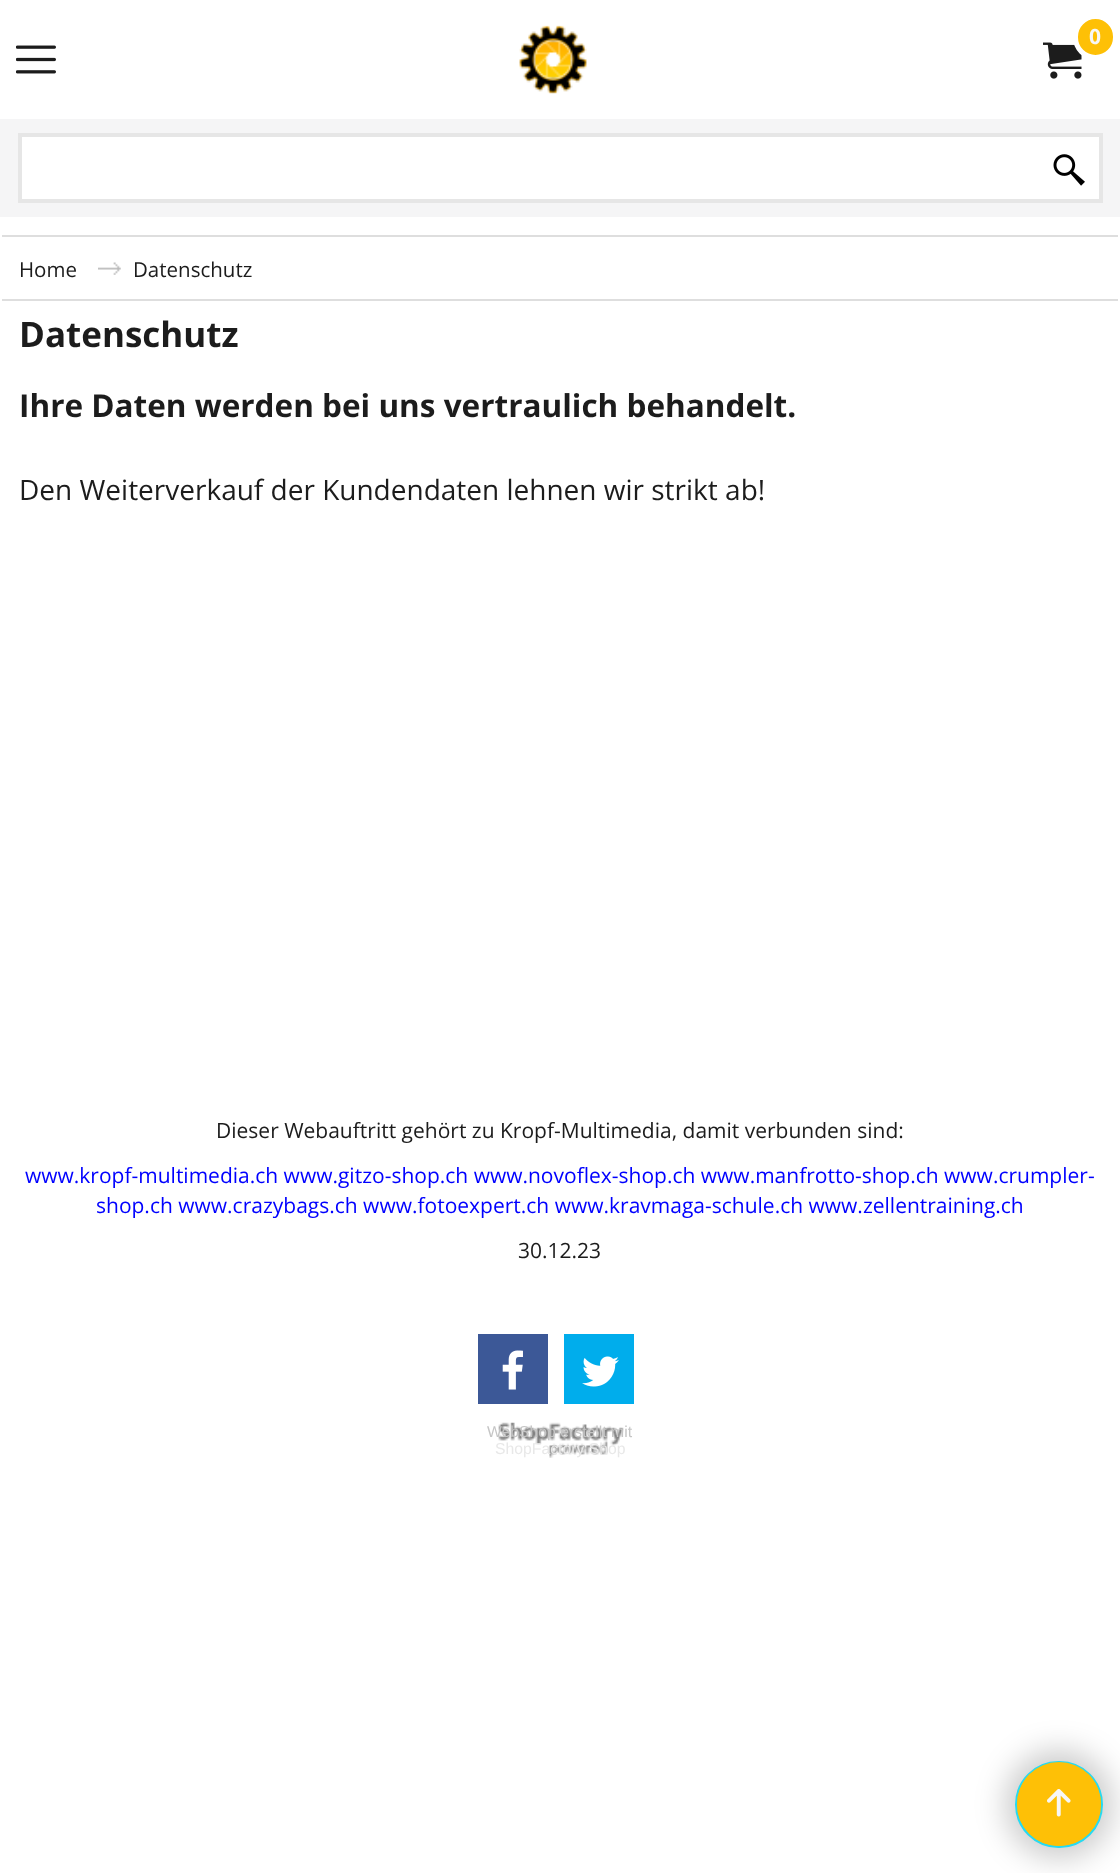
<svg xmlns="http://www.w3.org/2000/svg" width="1120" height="1873">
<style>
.a{font:bold 21px Open Sans;fill:#f7f7f7}
.b{font:20.5px Open Sans;fill:#1c1c1c}
.c{font:bold 35px Open Sans;fill:#1c1c1c}
.d{font:bold 31.5px Open Sans;fill:#1c1c1c}
.e{font:28px Open Sans;fill:#1c1c1c}
.f{font:21px Open Sans;fill:#1c1c1c}
.g{font:21px Open Sans;fill:#00f}
.h{font:15.75px Liberation Sans;fill:#c5c5c5}
.i{font:15.75px Liberation Sans;fill:#e8e8e8}
</style>
<defs>
<clipPath id="clip1"><path d="M2 219h1116v1185H2z"/></clipPath>
</defs>
<rect width="100%" height="100%" fill="#fff"/>
<image href="1.png" x="519" y="25" width="68" height="69"/>
<image href="2.png" x="1043" y="42" width="39" height="37"/>
<rect fill="#fec006" stroke="#fff" stroke-width="5" x="1075.5" y="16.5" width="40" height="41" rx="20"/>
<image href="3.png" x="16" y="45" width="40" height="29"/>
<path fill="#f5f5f6" d="M0 119h1120v98H0z"/>
<path fill="#fff" stroke="#e6e6e6" stroke-width="4" d="M20 135h1081v66H20z"/>
<image href="4.png" x="1053" y="154" width="32" height="32"/>
<g clip-path="url(#clip1)">
<path fill="none" stroke="#dedede" stroke-width="2" d="M-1 236h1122v64H-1z"/>
</g>
<image href="5.png" x="98" y="262" width="23" height="13"/>
<path fill="#3c5897" d="M478 1334h70v70H478z"/>
<image href="6.png" x="502" y="1350" width="21" height="40"/>
<path fill="#00adec" d="M564 1334h70v70H564z"/>
<image href="7.png" x="582" y="1356" width="37" height="31"/>
<image href="8.png" x="498" y="1422" width="126" height="36"/>
<rect fill="#00000033" filter="blur(15px)" x="1005" y="1750" width="108" height="109" rx="54"/>
<rect fill="#fec006" stroke="#26daf1" stroke-width="2" x="1016" y="1762" width="86" height="85" rx="42.5"/>
<circle fill="#fec006" cx="1059" cy="1804" r="42"/>
<image href="9.png" x="1047" y="1789" width="24" height="28"/>
<text class="a" x="1089" y="44">0</text>
<text class="b" x="19" y="277">Home</text>
<text class="b" x="133" y="277">Datenschutz</text>
<text class="c" x="19" y="347">Datenschutz</text>
<text class="d" x="19" y="417">Ihre Daten werden bei uns vertraulich behandelt.</text>
<text class="e" x="19" y="500">Den Weiterverkauf der Kundendaten lehnen wir strikt ab!</text>
<text class="f" x="216" y="1138">Dieser Webauftritt gehört zu Kropf-Multimedia, damit verbunden sind:</text>
<text class="g" x="25" y="1183">www.kropf-multimedia.ch www.gitzo-shop.ch www.novoflex-shop.ch www.manfrotto-shop.ch www.crumpler-</text>
<text class="g" x="96" y="1213">shop.ch www.crazybags.ch www.fotoexpert.ch www.kravmaga-schule.ch www.zellentraining.ch</text>
<text class="f" x="518" y="1258">30.12.23</text>
<text class="h" x="487" y="1437">WebShop erstellt mit</text>
<text class="i" x="495" y="1454">ShopFactory Shop</text>
</svg>
